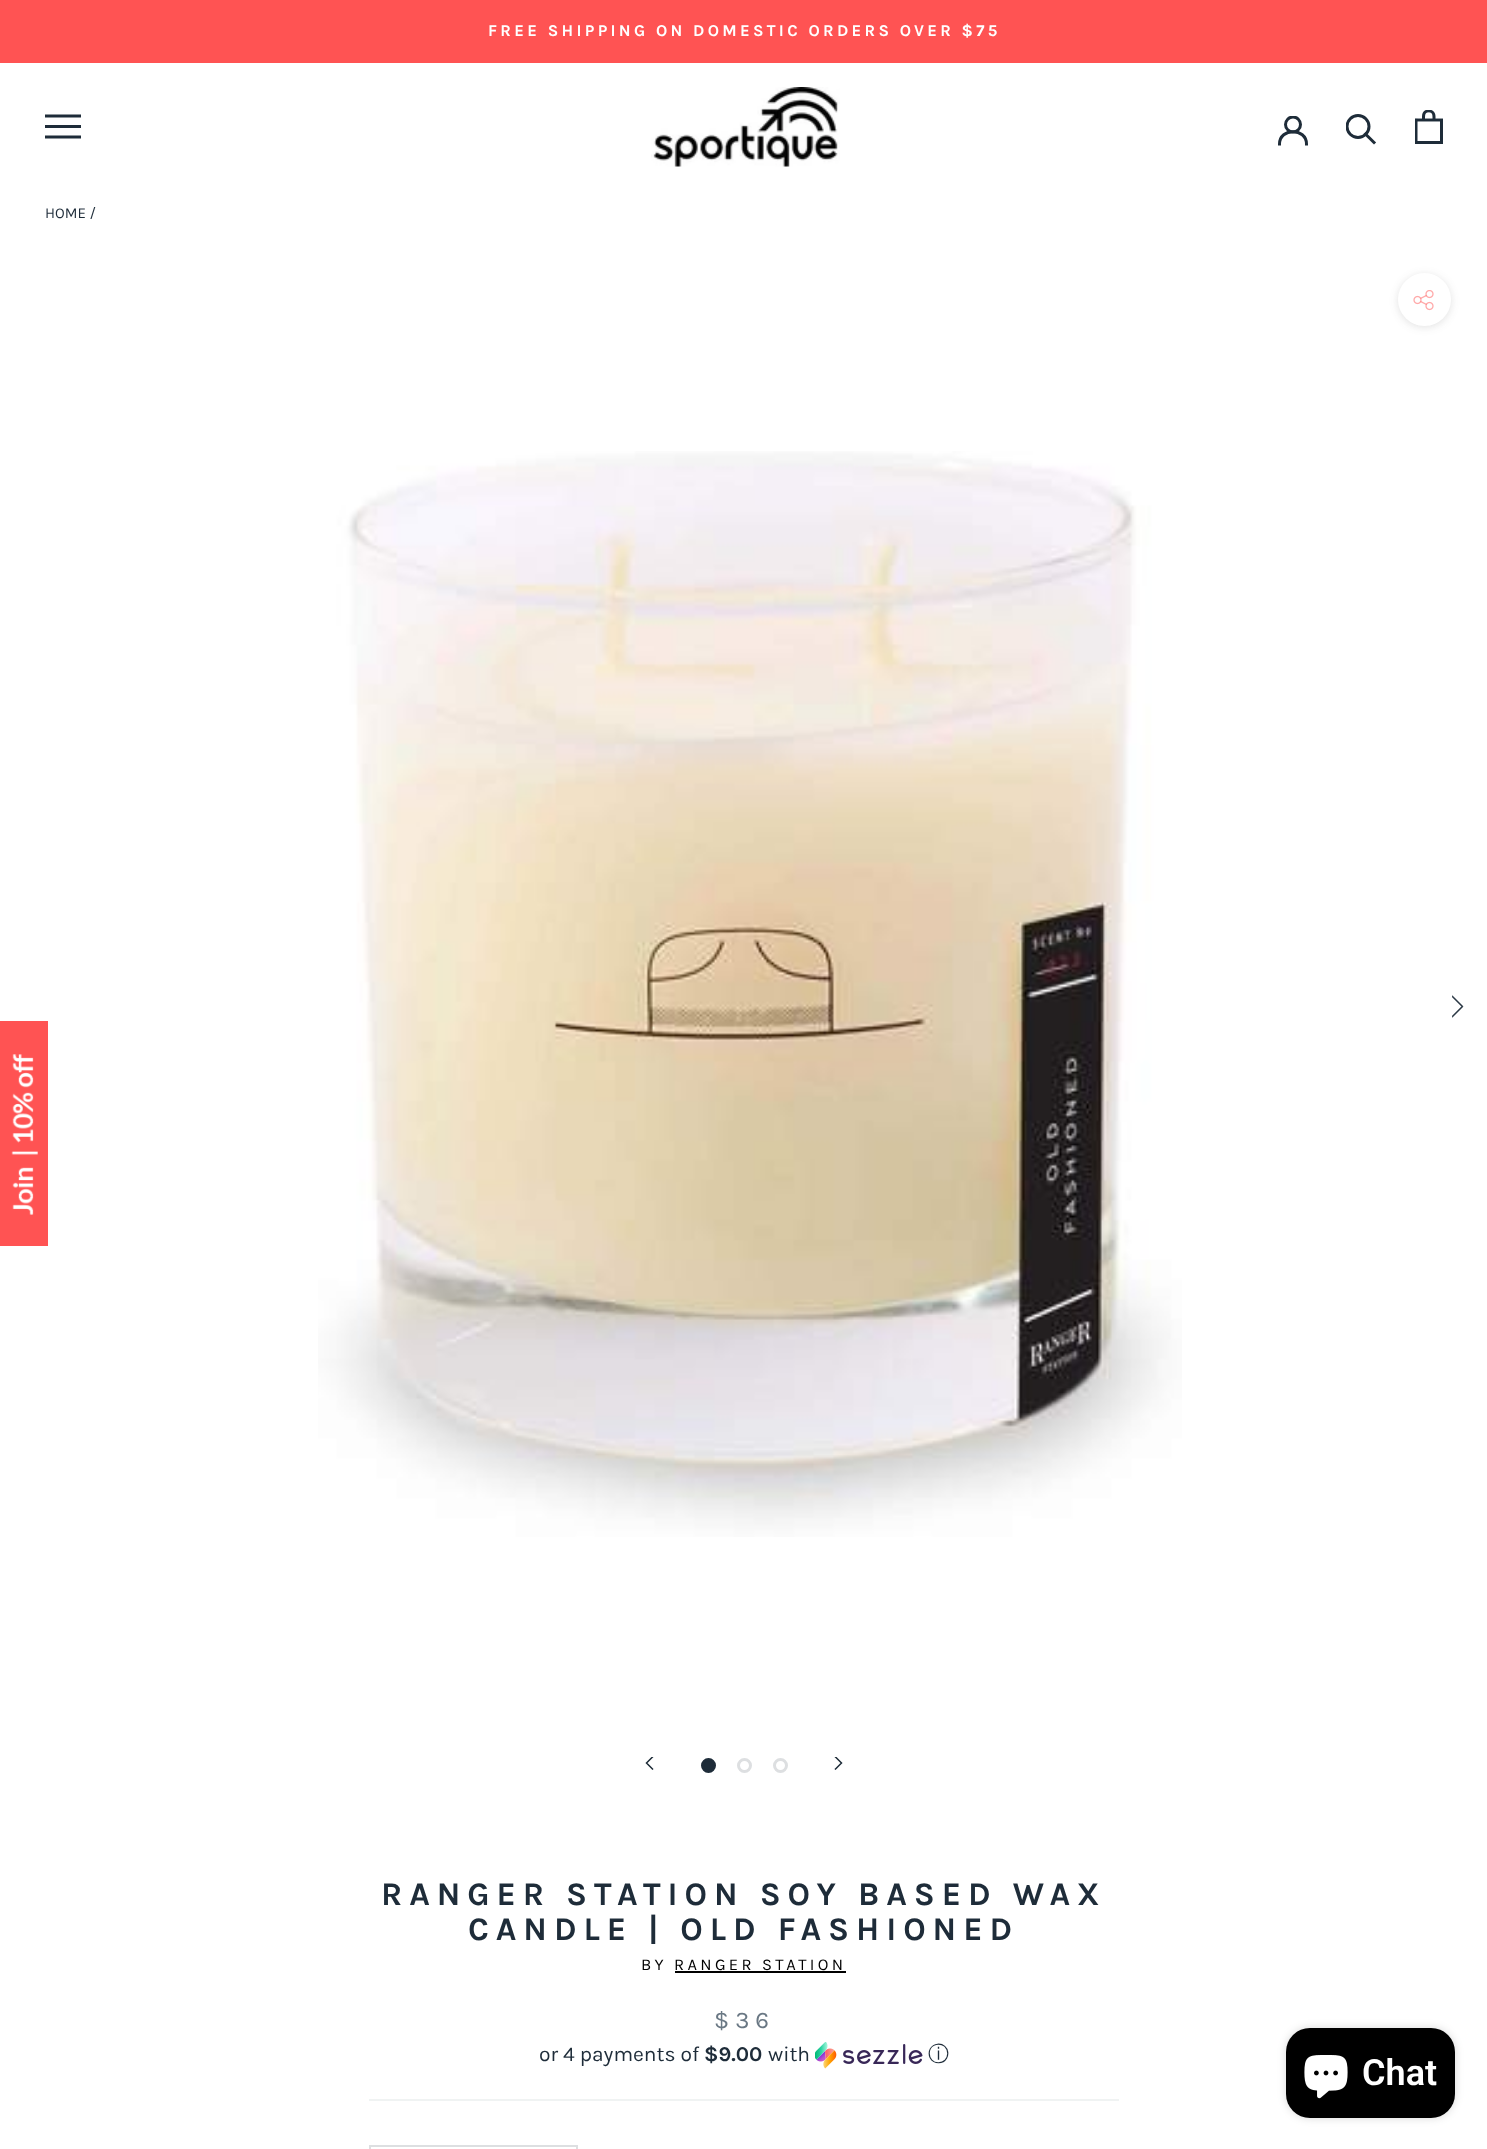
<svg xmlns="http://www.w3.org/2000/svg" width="1487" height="2149">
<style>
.a{font:bold 16.5px Karla;letter-spacing:3.3px;fill:#fff}
.b{font:15px Karla;fill:#1e2c39}
.c{font:bold 33px Karla;letter-spacing:6.9px;fill:#1e2c39}
.d{font:16.5px Karla;letter-spacing:3.3px;fill:#000}
.e{font:24px Karla;letter-spacing:6px;fill:#6a7884}
.f{font:21px Karla;fill:#1e2c39}
.g{font:bold 21px Karla;fill:#1e2c39}
.h{font:500 21px WenQuanYi Zen Hei;fill:#1e2c39}
.i{font:600 36px Roboto;fill:#fff}
</style>
<defs>
<clipPath id="clip1"><path d="M1278 116h30v30H1278z"/></clipPath>
<clipPath id="clip2"><path d="M1346 114h31v32H1346z"/></clipPath>
<clipPath id="clip3"><rect x="1398" y="273" width="53" height="53" rx="26.5"/></clipPath>
<clipPath id="clip4"><path d="M645 1757h9v13H645z"/></clipPath>
<clipPath id="clip5"><path d="M834 1757h9v13H834z"/></clipPath>
</defs>
<rect width="100%" height="100%" fill="#fff"/>
<path fill="#ff5353" d="M0 1021h48v225H0z"/>
<image href="1.png" x="11" y="1054" width="27" height="161"/>
<path fill="#ff5353" d="M0 0h1487v63H0z"/>
<path fill="#1e2c39" d="M45 138.5v-3h36v3zm0-13.5h36v3h-36zm0-10.5h36v3h-36z"/>
<image href="2.png" x="651" y="87" width="189" height="80"/>
<path fill="none" stroke="#1e2c39" stroke-width="3" stroke-linecap="square" d="M1279.5 144c0-16.5 27-16.5 27 0"/>
<g clip-path="url(#clip1)">
<circle fill="none" stroke="#1e2c39" stroke-width="3" cx="1293" cy="124.5" r="7.5"/>
</g>
<path fill="none" stroke="#1e2c39" stroke-width="3" stroke-linecap="square" d="M1374 142.5l-8.5-8.5"/>
<g clip-path="url(#clip2)">
<circle fill="none" stroke="#1e2c39" stroke-width="3" cx="1358" cy="126.5" r="11"/>
</g>
<image href="3.png" x="1415" y="110" width="28" height="34"/>
<rect fill="#36363626" filter="blur(4px)" x="1398" y="275" width="53" height="52" rx="26"/>
<circle fill="#fff" cx="1424.5" cy="299.5" r="26.5"/>
<image href="4.png" x="1413" y="290" width="21" height="21"/>
<g clip-path="url(#clip3)">
<path fill="none" stroke="#fff" stroke-width="1.3" d="M1433.5 322.5l-18.5 18m18.5 0l-18.5-18"/>
</g>
<image href="5.png" x="318" y="451" width="864" height="1086"/>
<image href="6.png" x="1452" y="995" width="12" height="23"/>
<g clip-path="url(#clip4)">
<path fill="none" stroke="#1e2c39" stroke-width="1.5" stroke-linecap="square" d="M652.5 1769l-6-6l6-6"/>
</g>
<circle fill="#1e2c39" stroke="#1e2c39" stroke-width="3" cx="708.5" cy="1765.5" r="6"/>
<circle fill="none" stroke="#dddfe1" stroke-width="3" cx="744.5" cy="1765.5" r="6"/>
<circle fill="none" stroke="#dddfe1" stroke-width="3" cx="780.5" cy="1765.5" r="6"/>
<g clip-path="url(#clip5)">
<path fill="none" stroke="#1e2c39" stroke-width="1.5" stroke-linecap="square" d="M835.5 1769l6-6l-6-6"/>
</g>
<path fill="#000" d="M675 1971h171v2H675z"/>
<image href="7.png" x="815" y="2042" width="108" height="27"/>
<path fill="#f0f3f3" d="M369 2099h750v2H369z"/>
<path fill="none" stroke="#dddfe1" stroke-width="2" d="M370 2146h207v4H370z"/>
<rect fill="#00000026" filter="blur(4px)" x="1286" y="2028" width="169" height="90" rx="24"/>
<rect fill="#000" x="1286" y="2028" width="169" height="90" rx="24"/>
<image href="8.png" x="1304" y="2055" width="44" height="44"/>
<text class="a" x="488" y="36">FREE SHIPPING ON DOMESTIC ORDERS OVER $75</text>
<text class="b" x="45" y="218">HOME /</text>
<text class="c" x="381" y="1905">RANGER STATION SOY BASED WAX</text>
<text class="c" x="468" y="1940">CANDLE | OLD FASHIONED</text>
<text class="d" x="641" y="1970">BY RANGER STATION</text>
<text class="e" x="714" y="2028">$36</text>
<text class="f" x="539" y="2061">or 4 payments of</text>
<text class="g" x="704" y="2061">$9.00</text>
<text class="f" x="768" y="2061">with</text>
<text class="h" x="928" y="2061">ⓘ</text>
<text class="i" x="1362" y="2085">Chat</text>
</svg>
